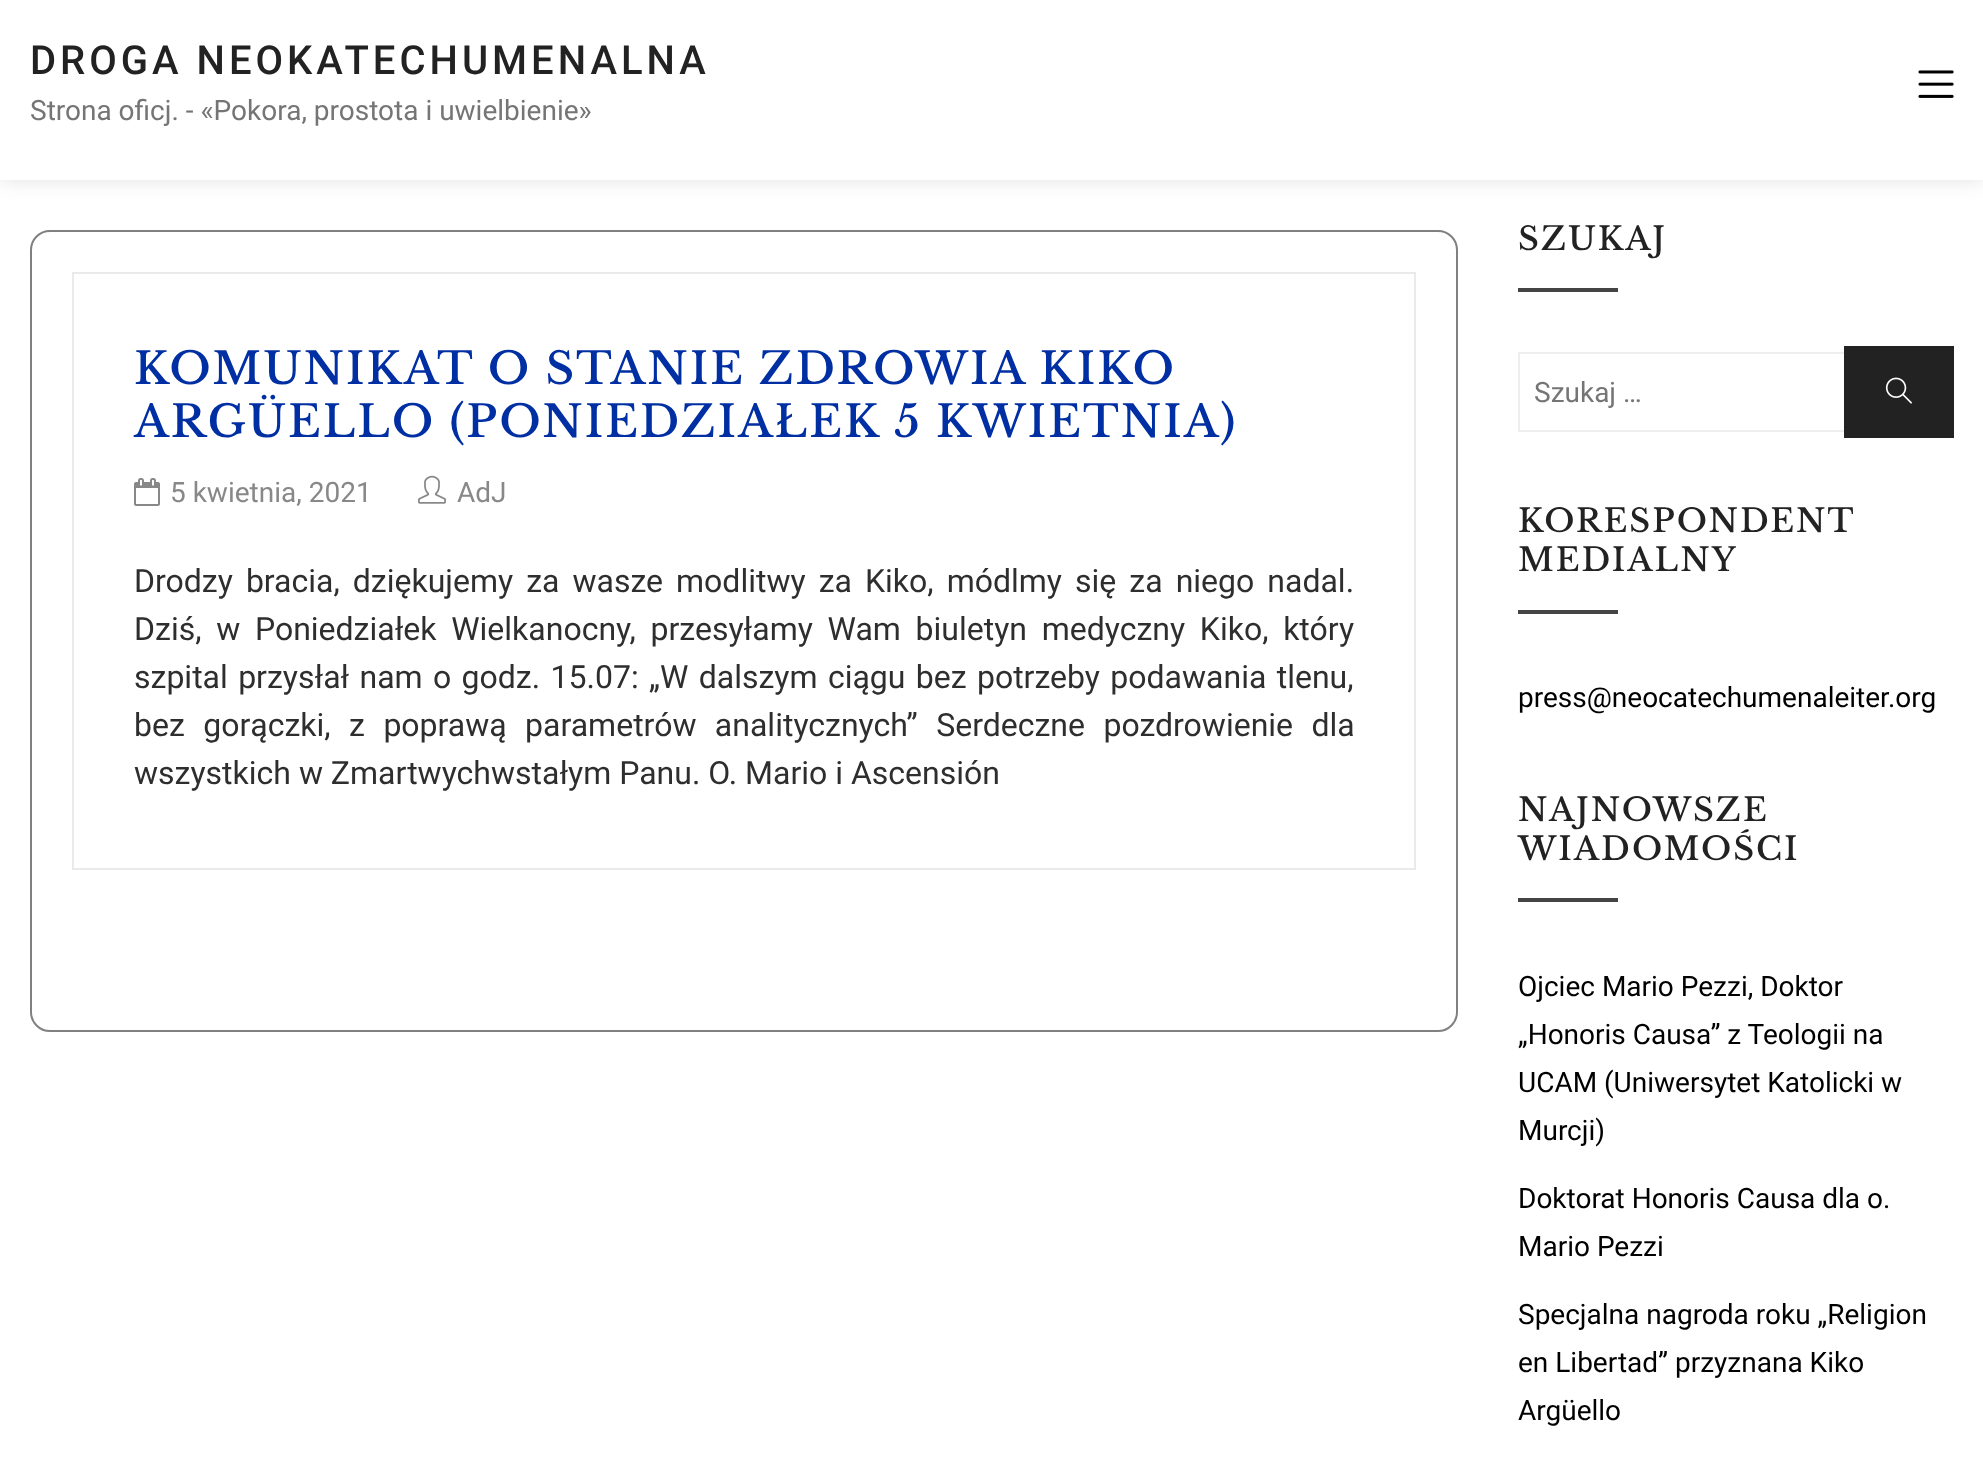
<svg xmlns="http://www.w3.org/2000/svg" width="1983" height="1459">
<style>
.a{font:500 40px Roboto;letter-spacing:4px;fill:#222}
.b{font:28px Roboto;fill:#757575}
.c{font:500 44px Libre Baskerville;letter-spacing:2px;fill:#002ea3}
.d{font:28px Roboto;fill:#888}
.e{font:32px Roboto;fill:#2f2e2e}
.f{font:500 32px Libre Baskerville;letter-spacing:2px;fill:#222}
.g{font:28px Roboto;fill:#000}
</style>
<defs>
<clipPath id="clip1"><path d="M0 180h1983v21H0z"/></clipPath>
</defs>
<rect width="100%" height="100%" fill="#fff"/>
<g clip-path="url(#clip1)">
<path fill="#e0e0e0" filter="blur(10px)" d="M0 0h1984v180H0z"/>
</g>
<image href="1.png" x="1918" y="70" width="36" height="28"/>
<rect fill="none" stroke="#808080" stroke-width="2" x="31" y="231" width="1426" height="800" rx="19"/>
<path fill="none" stroke="#eaeaea" stroke-width="2" d="M73 273h1342v596H73z"/>
<image href="2.png" x="134" y="478" width="26" height="28"/>
<image href="3.png" x="418" y="475" width="28" height="29"/>
<path fill="#444" d="M1518 288h100v4H1518z"/>
<path fill="none" stroke="#eee" stroke-width="2" d="M1519 353h434v78H1519z"/>
<path fill="#222" d="M1844 346h110v92H1844z"/>
<image href="4.png" x="1885" y="377" width="27" height="27"/>
<path fill="#444" d="M1518 610h100v4H1518z"/>
<path fill="#444" d="M1518 898h100v4H1518z"/>
<text class="a" x="30" y="74">DROGA NEOKATECHUMENALNA</text>
<text class="b" x="30" y="120">Strona oficj. - «Pokora, prostota i uwielbienie»</text>
<text class="c" x="134" y="384">KOMUNIKAT O STANIE ZDROWIA KIKO</text>
<text class="c" x="134" y="437">ARGÜELLO (PONIEDZIAŁEK 5 KWIETNIA)</text>
<text class="d" x="170" y="502">5 kwietnia, 2021</text>
<text class="d" x="457" y="502">AdJ</text>
<text class="e" x="134" y="592" word-spacing="5.1">Drodzy bracia, dziękujemy za wasze modlitwy za Kiko, módlmy się za niego nadal.</text>
<text class="e" x="134" y="640" word-spacing="6.75">Dziś, w Poniedziałek Wielkanocny, przesyłamy Wam biuletyn medyczny Kiko, który</text>
<text class="e" x="134" y="688" word-spacing="2.4">szpital przysłał nam o godz. 15.07: „W dalszym ciągu bez potrzeby podawania tlenu,</text>
<text class="e" x="134" y="736" word-spacing="10.5">bez gorączki, z poprawą parametrów analitycznych” Serdeczne pozdrowienie dla</text>
<text class="e" x="134" y="784">wszystkich w Zmartwychwstałym Panu. O. Mario i Ascensión</text>
<text class="f" x="1518" y="250">SZUKAJ</text>
<text class="b" x="1534" y="402">Szukaj …</text>
<text class="f" x="1518" y="532">KORESPONDENT</text>
<text class="f" x="1518" y="571">MEDIALNY</text>
<text class="g" x="1518" y="707">press@neocatechumenaleiter.org</text>
<text class="f" x="1518" y="821">NAJNOWSZE</text>
<text class="f" x="1518" y="860">WIADOMOŚCI</text>
<text class="g" x="1518" y="996">Ojciec Mario Pezzi, Doktor</text>
<text class="g" x="1518" y="1044">„Honoris Causa” z Teologii na</text>
<text class="g" x="1518" y="1092">UCAM (Uniwersytet Katolicki w</text>
<text class="g" x="1518" y="1140">Murcji)</text>
<text class="g" x="1518" y="1208">Doktorat Honoris Causa dla o.</text>
<text class="g" x="1518" y="1256">Mario Pezzi</text>
<text class="g" x="1518" y="1324">Specjalna nagroda roku „Religion</text>
<text class="g" x="1518" y="1372">en Libertad” przyznana Kiko</text>
<text class="g" x="1518" y="1420">Argüello</text>
</svg>
